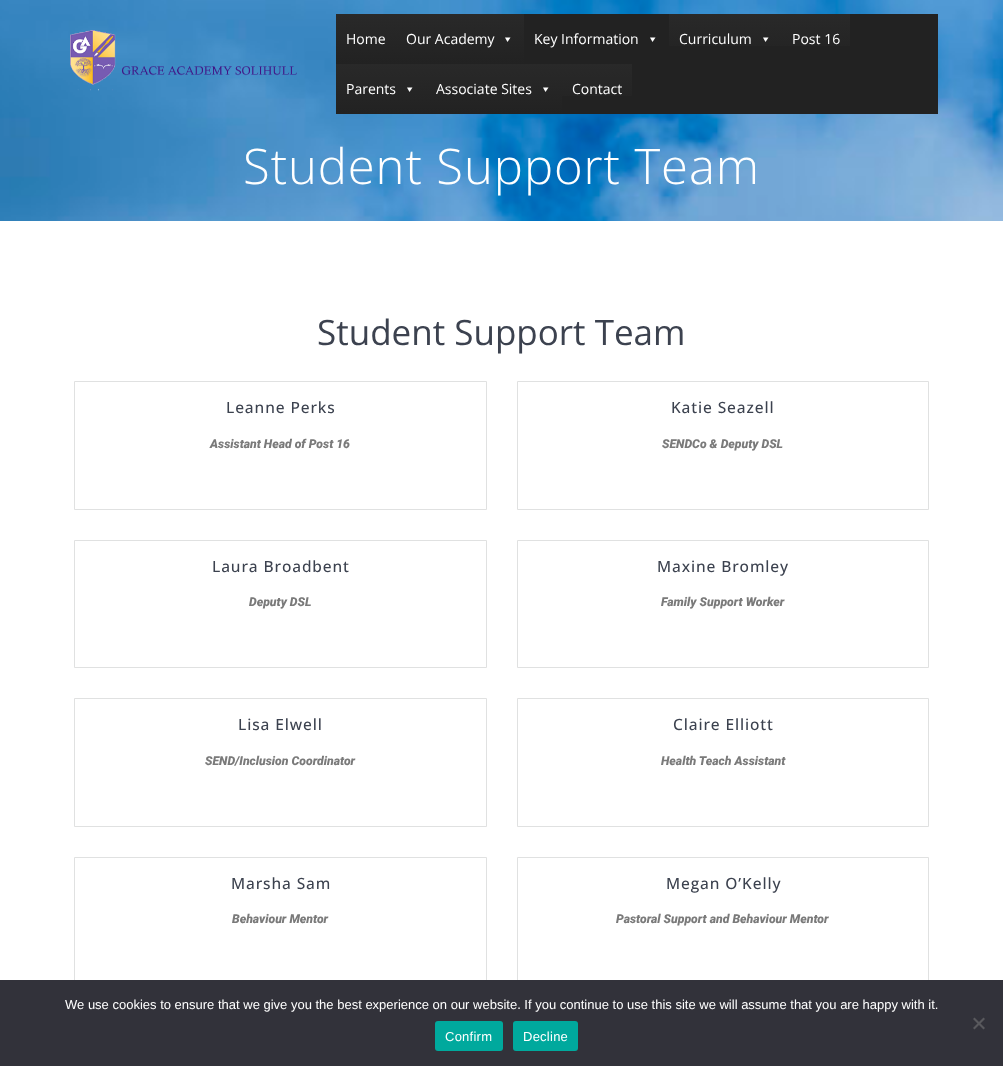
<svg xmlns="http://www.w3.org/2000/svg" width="1003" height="1066">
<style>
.a{font:14px Open Sans;fill:#fff}
.b{font:300 49px Open Sans;letter-spacing:0.9px;fill:#fff}
.c{font:35px Open Sans;fill:#3c424f}
.d{font:500 15.5px Open Sans;letter-spacing:0.9px;fill:#3c424f}
.e{font:italic 900 12.25px Roboto;fill:#7a7a7a}
.f{font:13px Liberation Sans;fill:#fff}
.g{font:13px Liberation Sans;letter-spacing:0.25px;fill:#fff}
</style>
<defs>
<linearGradient id="g1" gradientUnits="userSpaceOnUse" x1="366" y1="14" x2="366" y2="64"><stop offset="0" stop-color="#292929"/><stop offset="1" stop-color="#222"/></linearGradient>
<linearGradient id="g2" gradientUnits="userSpaceOnUse" x1="460" y1="14" x2="460" y2="64"><stop offset="0" stop-color="#292929"/><stop offset="1" stop-color="#222"/></linearGradient>
<linearGradient id="g3" gradientUnits="userSpaceOnUse" x1="726" y1="14" x2="726" y2="64"><stop offset="0" stop-color="#292929"/><stop offset="1" stop-color="#222"/></linearGradient>
<linearGradient id="g4" gradientUnits="userSpaceOnUse" x1="816" y1="14" x2="816" y2="64"><stop offset="0" stop-color="#292929"/><stop offset="1" stop-color="#222"/></linearGradient>
<linearGradient id="g5" gradientUnits="userSpaceOnUse" x1="381" y1="64" x2="381" y2="114"><stop offset="0" stop-color="#292929"/><stop offset="1" stop-color="#222"/></linearGradient>
<linearGradient id="g6" gradientUnits="userSpaceOnUse" x1="494" y1="64" x2="494" y2="114"><stop offset="0" stop-color="#292929"/><stop offset="1" stop-color="#222"/></linearGradient>
<linearGradient id="g7" gradientUnits="userSpaceOnUse" x1="597" y1="64" x2="597" y2="114"><stop offset="0" stop-color="#292929"/><stop offset="1" stop-color="#222"/></linearGradient>
</defs>
<rect width="100%" height="100%" fill="#fff"/>
<image href="2.png" x="0" y="0" width="1003" height="221"/>
<image href="1.png" x="70" y="30" width="227" height="61"/>
<path fill="#222" d="M524 14h414v100H524z"/>
<path fill="url(#g1)" d="M336 14h60v50H336z"/>
<path fill="url(#g2)" d="M396 14h128v50H396z"/>
<path fill="#fff" d="M510.5 37.5l-3 4.5l-2.5-4.5z"/>
<path fill="#fff" d="M655.5 37.5l-3 4.5l-2.5-4.5z"/>
<path fill="url(#g3)" d="M669 14h113v32H669z"/>
<path fill="#fff" d="M768.5 37.5l-3 4.5l-2.5-4.5z"/>
<path fill="url(#g4)" d="M782 14h68v32H782z"/>
<path fill="url(#g5)" d="M336 64h90v50H336z"/>
<path fill="#fff" d="M412.5 87.5l-3 4.5l-2.5-4.5z"/>
<path fill="url(#g6)" d="M426 64h136v50H426z"/>
<path fill="#fff" d="M548.5 87.5l-3 4.5l-2.5-4.5z"/>
<path fill="url(#g7)" d="M562 64h70v32H562z"/>
<path fill="none" stroke="#e0e1e1" d="M74.5 381.5h412v128H74.5z"/>
<path fill="none" stroke="#e0e1e1" d="M517.5 381.5h411v128H517.5z"/>
<path fill="none" stroke="#e0e1e1" d="M74.5 540.5h412v127H74.5z"/>
<path fill="none" stroke="#e0e1e1" d="M517.5 540.5h411v127H517.5z"/>
<path fill="none" stroke="#e0e1e1" d="M74.5 698.5h412v128H74.5z"/>
<path fill="none" stroke="#e0e1e1" d="M517.5 698.5h411v128H517.5z"/>
<path fill="none" stroke="#e0e1e1" d="M74.5 857.5h412v127H74.5z"/>
<path fill="none" stroke="#e0e1e1" d="M517.5 857.5h411v127H517.5z"/>
<path fill="#32323a" d="M0 980h1003v86H0z"/>
<path fill="#59595d" d="M983.5 1017.5l1.5 1.5l-10.5 10.5l-1.5-1.5z"/>
<path fill="#59595d" d="M973 1019l1.5-1.5l10.5 10.5l-1.5 1.5z"/>
<rect fill="#00a99d" x="435" y="1021" width="68" height="30" rx="3"/>
<rect fill="#00a99d" x="513" y="1021" width="65" height="30" rx="3"/>
<text class="a" x="346" y="44">Home</text>
<text class="a" x="406" y="44">Our Academy</text>
<text class="a" x="534" y="44">Key Information</text>
<text class="a" x="679" y="44">Curriculum</text>
<text class="a" x="792" y="44">Post 16</text>
<text class="a" x="346" y="94">Parents</text>
<text class="a" x="436" y="94">Associate Sites</text>
<text class="a" x="572" y="94">Contact</text>
<text class="b" x="243" y="184">Student Support Team</text>
<text class="c" x="317" y="345">Student Support Team</text>
<text class="d" x="226" y="413">Leanne Perks</text>
<text class="e" x="210" y="448">Assistant Head of Post 16</text>
<text class="d" x="671" y="413">Katie Seazell</text>
<text class="e" x="662" y="448">SENDCo &amp; Deputy DSL</text>
<text class="d" x="212" y="572">Laura Broadbent</text>
<text class="e" x="249" y="606">Deputy DSL</text>
<text class="d" x="657" y="572">Maxine Bromley</text>
<text class="e" x="661" y="606">Family Support Worker</text>
<text class="d" x="238" y="730">Lisa Elwell</text>
<text class="e" x="205" y="765">SEND/Inclusion Coordinator</text>
<text class="d" x="673" y="730">Claire Elliott</text>
<text class="e" x="661" y="765">Health Teach Assistant</text>
<text class="d" x="231" y="889">Marsha Sam</text>
<text class="e" x="232" y="923">Behaviour Mentor</text>
<text class="d" x="666" y="889">Megan O’Kelly</text>
<text class="e" x="616" y="923">Pastoral Support and Behaviour Mentor</text>
<text class="f" x="65" y="1009">We use cookies to ensure that we give you the best experience on our website. If you continue to use this site we will assume that you are happy with it.</text>
<text class="g" x="445" y="1041">Confirm</text>
<text class="g" x="523" y="1041">Decline</text>
</svg>
